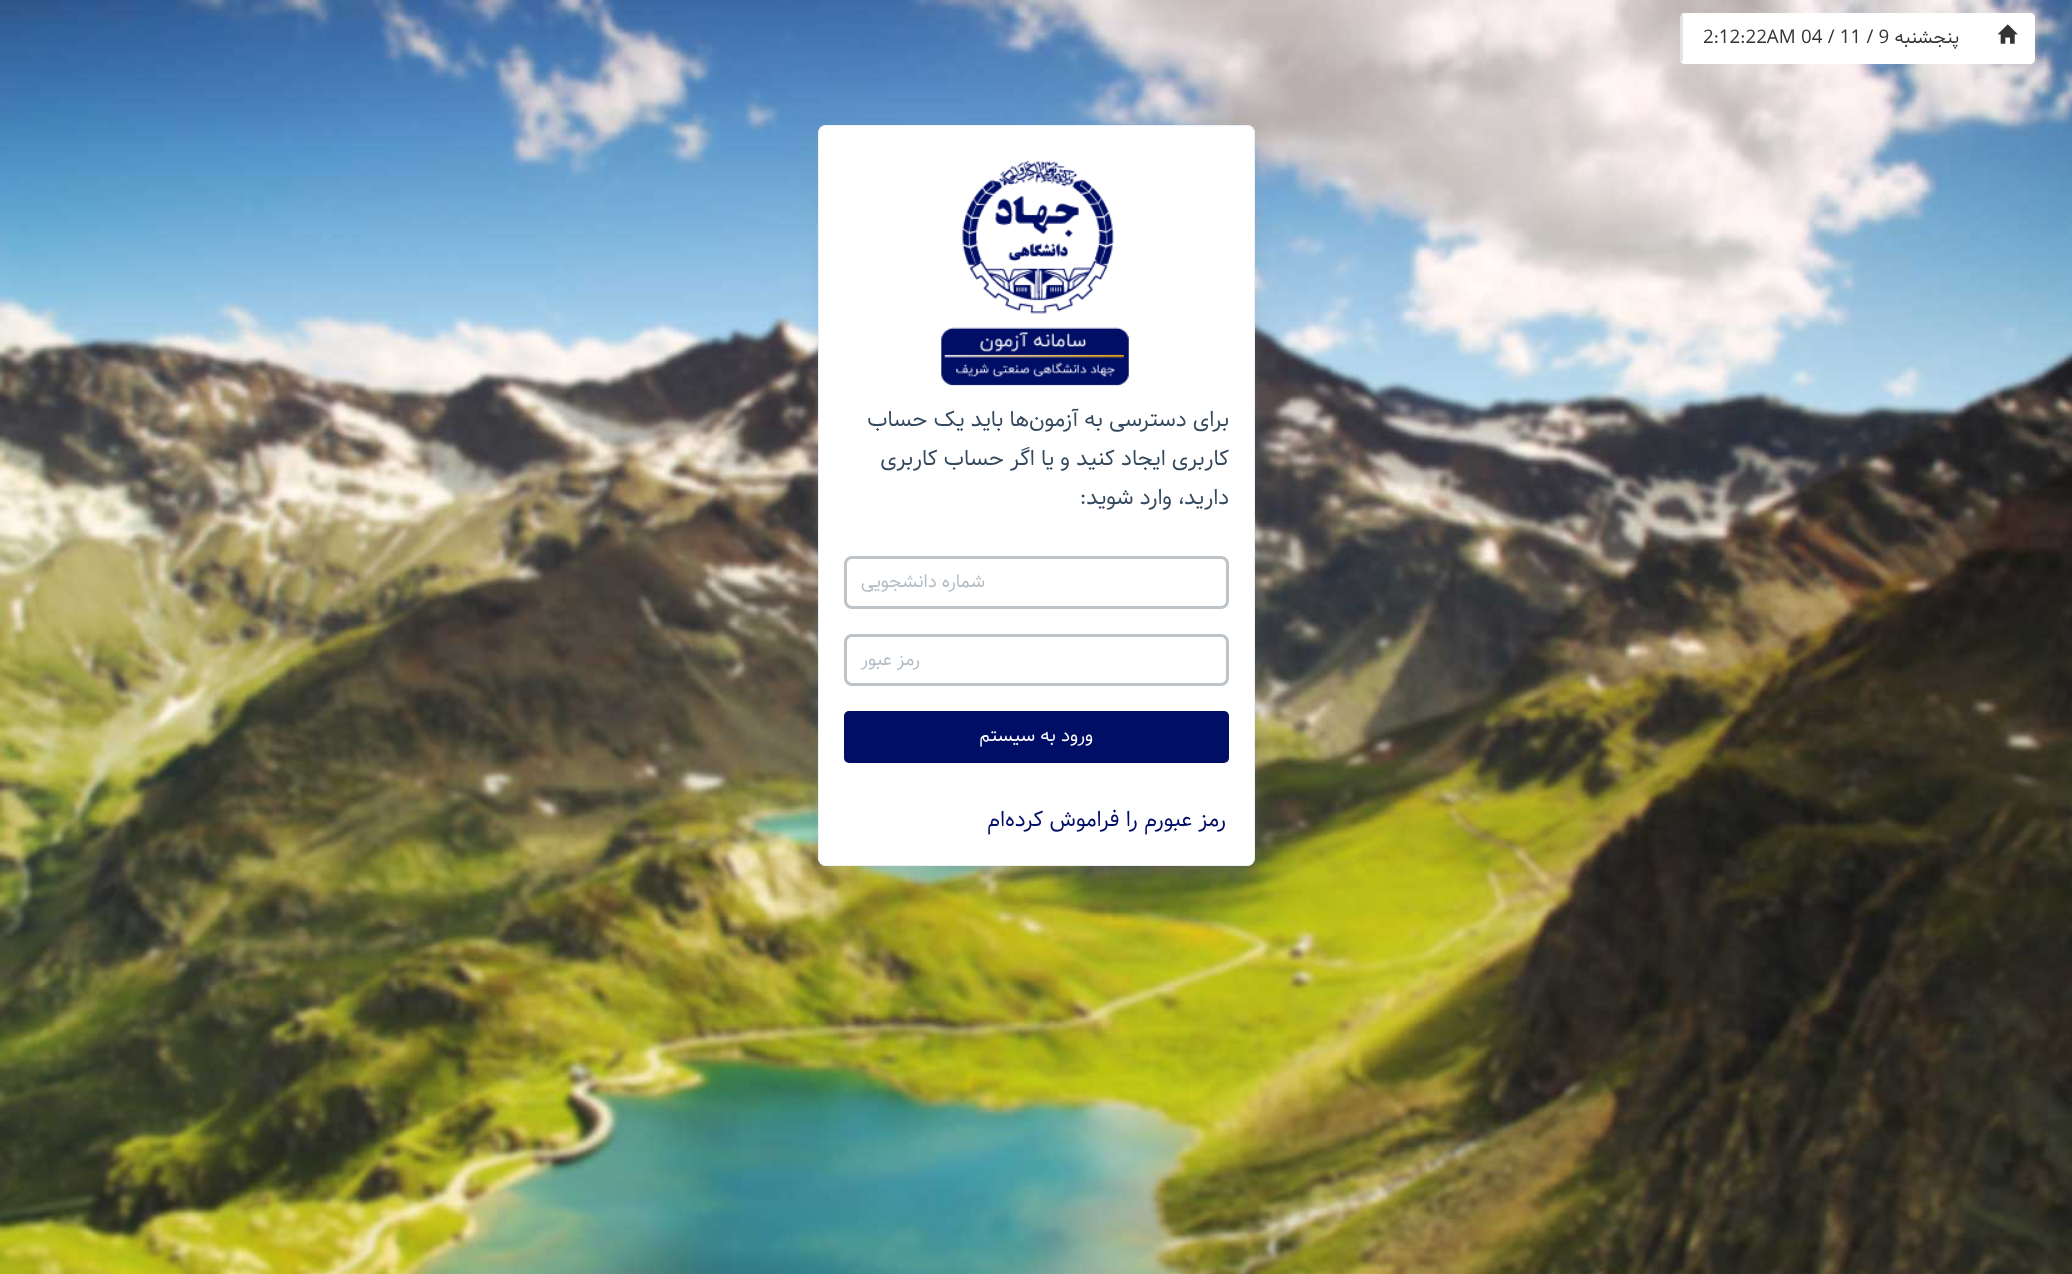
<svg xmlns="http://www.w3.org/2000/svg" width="2072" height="1274">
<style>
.a{font:18.75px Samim;direction:rtl;fill:#333}
.b{font:18.75px Samim;fill:#333}
.c{font:22.5px Samim;direction:rtl;fill:#34495e}
.d{font:18.75px Samim;direction:rtl;fill:#b2bcc5}
.e{font:18.75px Samim;direction:rtl;fill:#fff}
.f{font:22.5px Samim;direction:rtl;fill:#000e66}
</style>
<rect width="100%" height="100%" fill="#fff"/>
<image href="1.png" x="0" y="0" width="2072" height="1274"/>
<path fill="#fff" d="M1979 13h51c3 0 5 2 5 5v41c0 3-2 5-5 5h-51z"/>
<image href="2.png" x="1997" y="24" width="21" height="20"/>
<path fill="#fff" d="M1685 13h295v51h-295c-3 0-5-2-5-5v-41c0-3 2-5 5-5z"/>
<path fill="#34495e26" d="M1680 15h3v46H1680z"/>
<rect fill="#8c98a440" filter="blur(7.5px)" x="818" y="133" width="437" height="741" rx="8"/>
<rect fill="#fff" x="818" y="125" width="437" height="741" rx="8"/>
<rect fill="none" stroke="#e7eaf3b3" x="818.5" y="125.5" width="436" height="740" rx="7.5"/>
<image href="3.png" x="941" y="161" width="188" height="225"/>
<rect fill="none" stroke="#bdc3c7" stroke-width="3" x="845.5" y="557.5" width="382" height="50" rx="6.5"/>
<rect fill="none" stroke="#bdc3c7" stroke-width="3" x="845.5" y="635.5" width="382" height="49" rx="6.5"/>
<rect fill="#000e66" x="844" y="711" width="385" height="52" rx="5"/>
<text class="a" x="1959" y="43">پنجشنبه</text>
<text class="b" x="1801" y="43">04 / 11 / 9</text>
<text class="b" x="1703" y="43">2:12:22AM</text>
<text class="c" x="1229" y="426">برای دسترسی به آزمون‌ها باید یک حساب</text>
<text class="c" x="1229" y="465">کاربری ایجاد کنید و یا اگر حساب کاربری</text>
<text class="c" x="1229" y="504">دارید، وارد شوید:</text>
<text class="d" x="985" y="587">شماره دانشجویی</text>
<text class="d" x="920" y="665">رمز عبور</text>
<text class="e" x="1093" y="741">ورود به سیستم</text>
<text class="f" x="1226" y="826">رمز عبورم را فراموش کرده‌ام</text>
</svg>
